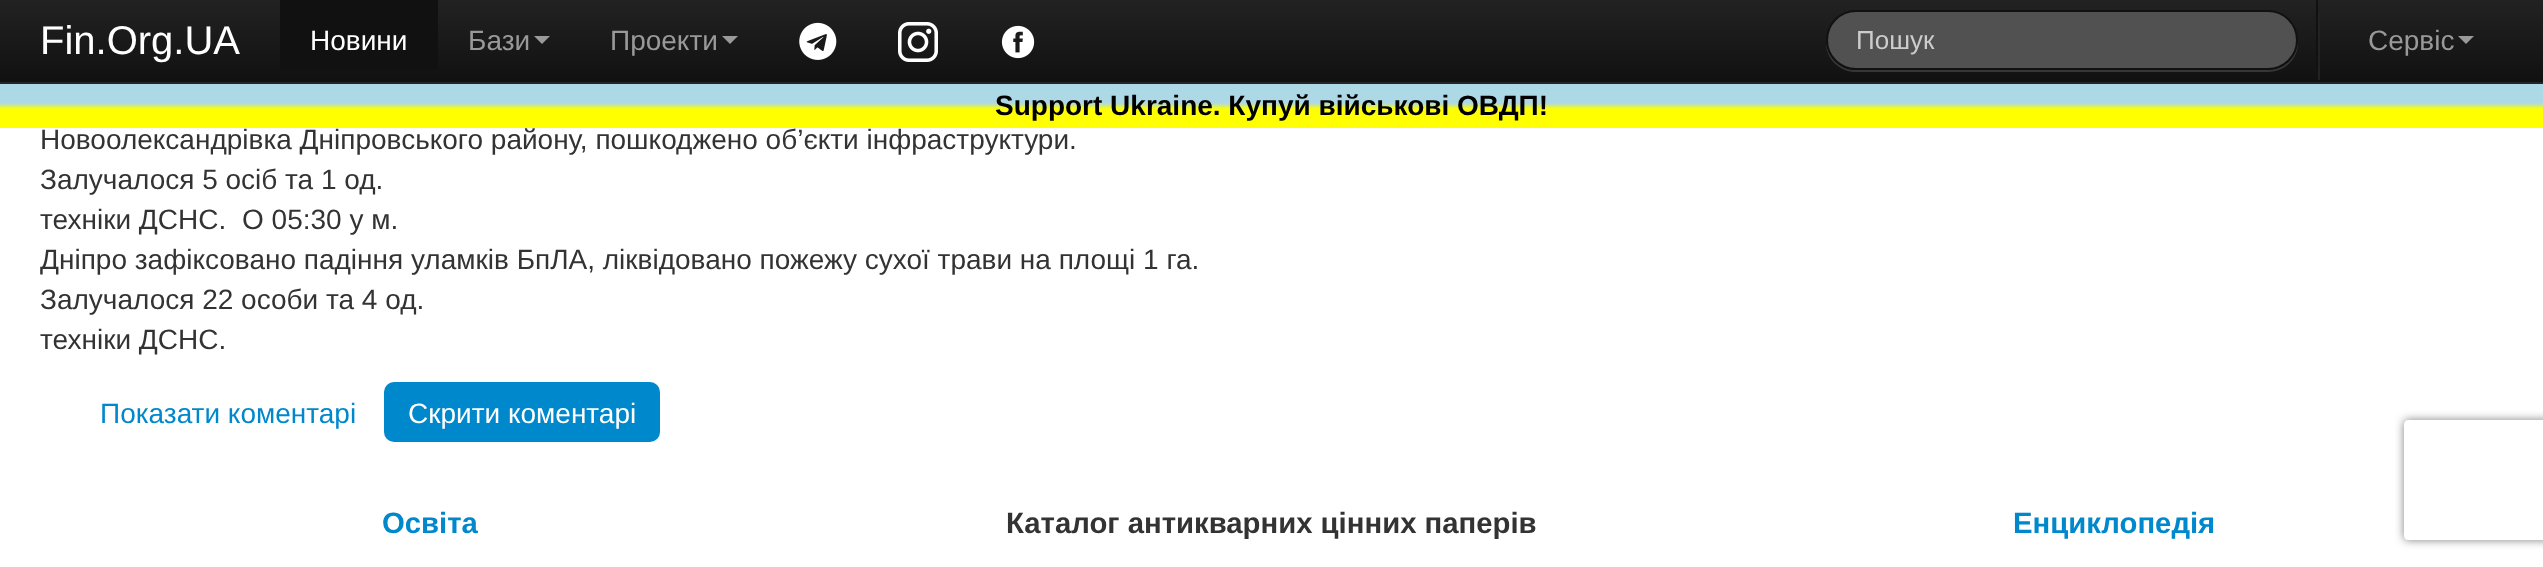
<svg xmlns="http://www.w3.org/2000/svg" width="2543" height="567">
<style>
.a{font:40px Liberation Sans;fill:#fff}
.b{font:28px Liberation Sans;fill:#fff}
.c{font:28px Liberation Sans;fill:#999}
.d{font:26px Liberation Sans;fill:#ccc}
.e{font:bold 28px Liberation Sans;fill:#000}
.f{font:28px Liberation Sans;fill:#333}
.g{font:28px Liberation Sans;fill:#08c}
.h{font:bold 29.3px Liberation Sans;fill:#08c}
.i{font:bold 29.3px Liberation Sans;fill:#333}
</style>
<defs>
<linearGradient id="g1" gradientUnits="userSpaceOnUse" x1="1272" y1="0" x2="1272" y2="82"><stop offset="0" stop-color="#222"/><stop offset="1" stop-color="#111"/></linearGradient>
<linearGradient id="g2" gradientUnits="userSpaceOnUse" x1="1272" y1="84" x2="1272" y2="128"><stop offset="0" stop-color="#add8e6"/><stop offset="0.43" stop-color="#add8e6"/><stop offset="0.57" stop-color="#ff0"/><stop offset="1" stop-color="#ff0"/></linearGradient>
<clipPath id="clip1"><path d="M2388 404h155v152h-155zm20 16h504c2 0 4 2 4 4v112c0 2-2 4-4 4h-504c-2 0-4-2-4-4v-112c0-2 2-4 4-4z" clip-rule="evenodd"/></clipPath>
</defs>
<rect width="100%" height="100%" fill="#fff"/>
<path fill="url(#g1)" d="M0 0h2543v82H0z"/>
<path fill="#252525" d="M0 82h2543v2H0z"/>
<path fill="#111" d="M280 0h158v70H280z"/>
<path fill="#999" d="M534 36h16l-8 8z"/>
<path fill="#999" d="M722 36h16l-8 8z"/>
<image href="1.png" x="799" y="22" width="38" height="38"/>
<image href="2.png" x="898" y="22" width="40" height="40"/>
<image href="3.png" x="1001" y="25" width="34" height="34"/>
<path fill="#ffffff26" d="M1826 41c-1 17 13 31 30 31h412c17 0 31-14 30-31c-1 16-14 29-30 29h-412c-16 0-29-13-30-29z"/>
<rect fill="#515151" stroke="#111" stroke-width="2" x="1827" y="11" width="470" height="58" rx="29"/>
<path fill="#222" d="M2318 12h2v68H2318z"/>
<path fill="#111" d="M2316 0h2v70H2316z"/>
<path fill="#999" d="M2458 36h16l-8 8z"/>
<path fill="url(#g2)" d="M0 84h2543v44H0z"/>
<rect fill="#08c" x="384" y="382" width="276" height="60" rx="10"/>
<g clip-path="url(#clip1)">
<rect fill="#808080" filter="blur(5px)" x="2404" y="420" width="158" height="120" rx="4"/>
</g>
<text class="a" x="40" y="54">Fin.Org.UA</text>
<text class="b" x="310" y="50">Новини</text>
<text class="c" x="468" y="50">Бази</text>
<text class="c" x="610" y="50">Проекти</text>
<text class="d" x="1856" y="49">Пошук</text>
<text class="c" x="2368" y="50">Сервіс</text>
<text class="e" x="995" y="115">Support Ukraine. Купуй військові ОВДП!</text>
<text class="f" x="40" y="149">Новоолександрівка Дніпровського району, пошкоджено об’єкти інфраструктури.</text>
<text class="f" x="40" y="189">Залучалося 5 осіб та 1 од.</text>
<text class="f" x="40" y="229">техніки ДСНС.</text>
<text class="f" x="242" y="229">О 05:30 у м.</text>
<text class="f" x="40" y="269">Дніпро зафіксовано падіння уламків БпЛА, ліквідовано пожежу сухої трави на площі 1 га.</text>
<text class="f" x="40" y="309">Залучалося 22 особи та 4 од.</text>
<text class="f" x="40" y="349">техніки ДСНС.</text>
<text class="g" x="100" y="423">Показати коментарі</text>
<text class="b" x="408" y="423">Скрити коментарі</text>
<text class="h" x="382" y="533">Освіта</text>
<text class="i" x="1006" y="533">Каталог антикварних цінних паперів</text>
<text class="h" x="2013" y="533">Енциклопедія</text>
</svg>
